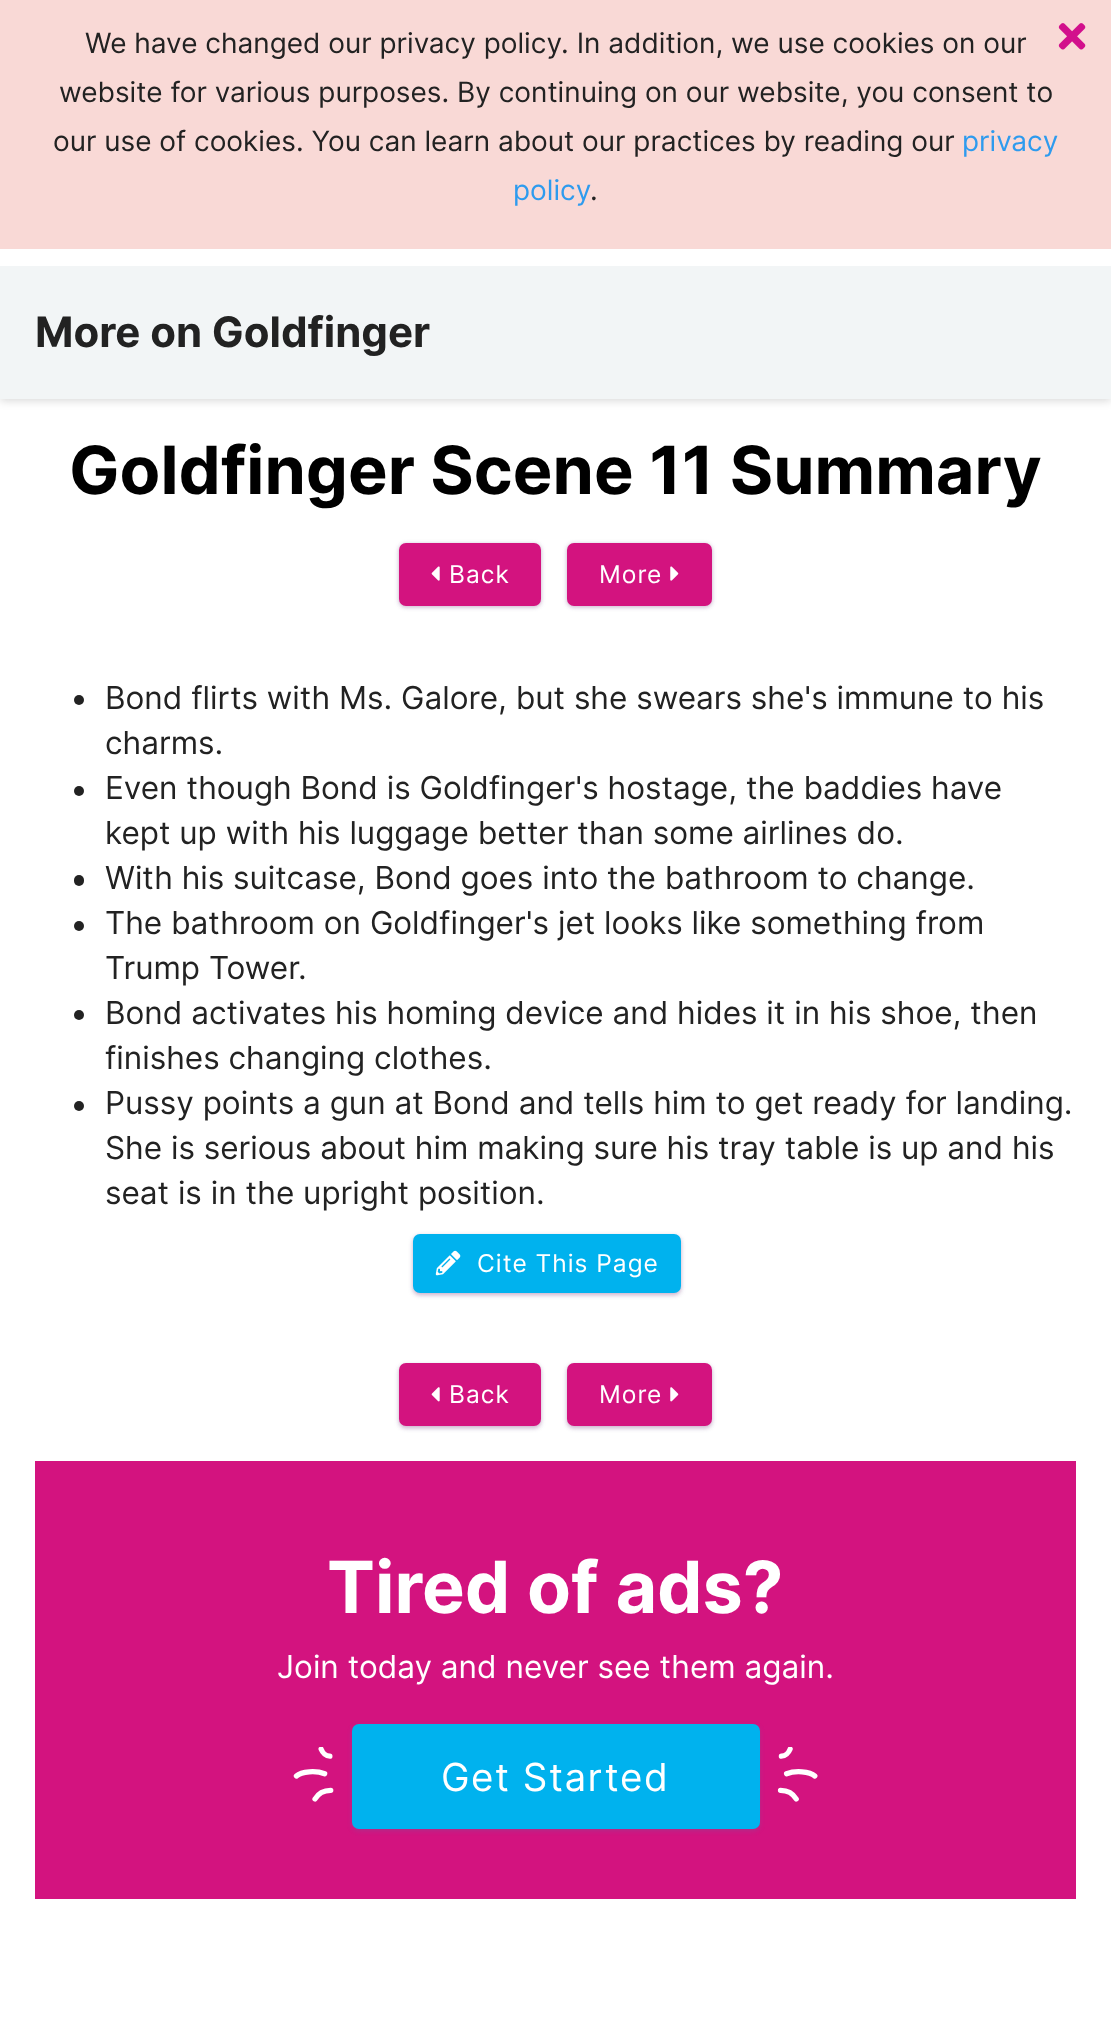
<svg xmlns="http://www.w3.org/2000/svg" width="1111" height="2043">
<style>
.a{font:28px Inter;fill:#222}
.b{font:28px Inter;fill:#2e9bee}
.c{font:bold 42px Inter;fill:#222}
.d{font:bold 66.5px Inter;fill:#000}
.e{font:24.5px Inter;letter-spacing:1px;fill:#fff}
.f{font:31.5px Inter;fill:#222}
.g{font:bold 71.75px Inter;fill:#fff}
.h{font:31.5px Inter;fill:#fff}
.i{font:38.5px Inter;letter-spacing:1.5px;fill:#fff}
</style>
<defs>
<clipPath id="clip1"><path d="M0 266h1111v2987H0z"/></clipPath>
</defs>
<rect width="100%" height="100%" fill="#fff"/>
<path fill="#f9d9d6" d="M0 0h1111v249H0z"/>
<image href="1.png" x="1058" y="23" width="28" height="27"/>
<g clip-path="url(#clip1)">
<path fill="#00000026" filter="blur(4.5px)" d="M0 268h1111v133H0z"/>
</g>
<path fill="#f2f5f6" d="M0 266h1111v133H0z"/>
<rect fill="#2c8faf33" filter="blur(2.5px)" x="399" y="544" width="142" height="63" rx="7"/>
<rect fill="#b82e7c4d" filter="blur(2px)" x="399" y="544" width="142" height="63" rx="7"/>
<rect fill="#d3137f" x="399" y="543" width="142" height="63" rx="7"/>
<image href="2.png" x="431" y="566" width="9" height="15"/>
<rect fill="#2c8faf33" filter="blur(2.5px)" x="567" y="544" width="145" height="63" rx="7"/>
<rect fill="#b82e7c4d" filter="blur(2px)" x="567" y="544" width="145" height="63" rx="7"/>
<rect fill="#d3137f" x="567" y="543" width="145" height="63" rx="7"/>
<image href="3.png" x="670" y="566" width="9" height="15"/>
<circle fill="#222" cx="79" cy="700" r="5"/>
<circle fill="#222" cx="79" cy="791" r="5"/>
<rect fill="#222" x="74" y="875" width="10" height="11" rx="5"/>
<circle fill="#222" cx="79" cy="926" r="5"/>
<circle fill="#222" cx="79" cy="1015" r="5"/>
<circle fill="#222" cx="79" cy="1106" r="5"/>
<rect fill="#2c8faf33" filter="blur(2.5px)" x="413" y="1236" width="268" height="59" rx="7"/>
<rect fill="#b82e7c4d" filter="blur(2px)" x="413" y="1236" width="268" height="59" rx="7"/>
<rect fill="#00b2ee" x="413" y="1234" width="268" height="59" rx="7"/>
<image href="4.png" x="435" y="1250" width="26" height="26"/>
<rect fill="#2c8faf33" filter="blur(2.5px)" x="399" y="1365" width="142" height="63" rx="7"/>
<rect fill="#b82e7c4d" filter="blur(2px)" x="399" y="1365" width="142" height="63" rx="7"/>
<rect fill="#d3137f" x="399" y="1363" width="142" height="63" rx="7"/>
<image href="5.png" x="431" y="1387" width="9" height="15"/>
<rect fill="#2c8faf33" filter="blur(2.5px)" x="567" y="1365" width="145" height="63" rx="7"/>
<rect fill="#b82e7c4d" filter="blur(2px)" x="567" y="1365" width="145" height="63" rx="7"/>
<rect fill="#d3137f" x="567" y="1363" width="145" height="63" rx="7"/>
<image href="6.png" x="670" y="1387" width="9" height="15"/>
<path fill="#d3137f" d="M35 1461h1041v438H35z"/>
<rect fill="#2c8faf33" filter="blur(2.5px)" x="352" y="1726" width="408" height="105" rx="7"/>
<rect fill="#00b2ee" x="352" y="1724" width="408" height="105" rx="7"/>
<image href="7.png" x="293" y="1747" width="41" height="55"/>
<image href="8.png" x="777" y="1747" width="41" height="55"/>
<text class="a" x="85" y="53">We have changed our privacy policy. In addition, we use cookies on our</text>
<text class="a" x="59" y="102">website for various purposes. By continuing on our website, you consent to</text>
<text class="a" x="53" y="151">our use of cookies. You can learn about our practices by reading our</text>
<text class="b" x="962" y="151">privacy</text>
<text class="b" x="513" y="200">policy</text>
<text class="a" x="590" y="200">.</text>
<text class="c" x="35" y="347">More on Goldfinger</text>
<text class="d" x="69" y="494">Goldfinger Scene 11 Summary</text>
<text class="e" x="449" y="583">Back</text>
<text class="e" x="599" y="583">More</text>
<text class="f" x="105" y="709">Bond flirts with Ms. Galore, but she swears she's immune to his</text>
<text class="f" x="105" y="754">charms.</text>
<text class="f" x="105" y="799">Even though Bond is Goldfinger's hostage, the baddies have</text>
<text class="f" x="105" y="844">kept up with his luggage better than some airlines do.</text>
<text class="f" x="105" y="889">With his suitcase, Bond goes into the bathroom to change.</text>
<text class="f" x="105" y="934">The bathroom on Goldfinger's jet looks like something from</text>
<text class="f" x="105" y="979">Trump Tower.</text>
<text class="f" x="105" y="1024">Bond activates his homing device and hides it in his shoe, then</text>
<text class="f" x="105" y="1069">finishes changing clothes.</text>
<text class="f" x="105" y="1114">Pussy points a gun at Bond and tells him to get ready for landing.</text>
<text class="f" x="105" y="1159">She is serious about him making sure his tray table is up and his</text>
<text class="f" x="105" y="1204">seat is in the upright position.</text>
<text class="e" x="477" y="1272">Cite This Page</text>
<text class="e" x="449" y="1403">Back</text>
<text class="e" x="599" y="1403">More</text>
<text class="g" x="327" y="1613">Tired of ads?</text>
<text class="h" x="277" y="1678">Join today and never see them again.</text>
<text class="i" x="441" y="1791">Get Started</text>
</svg>
